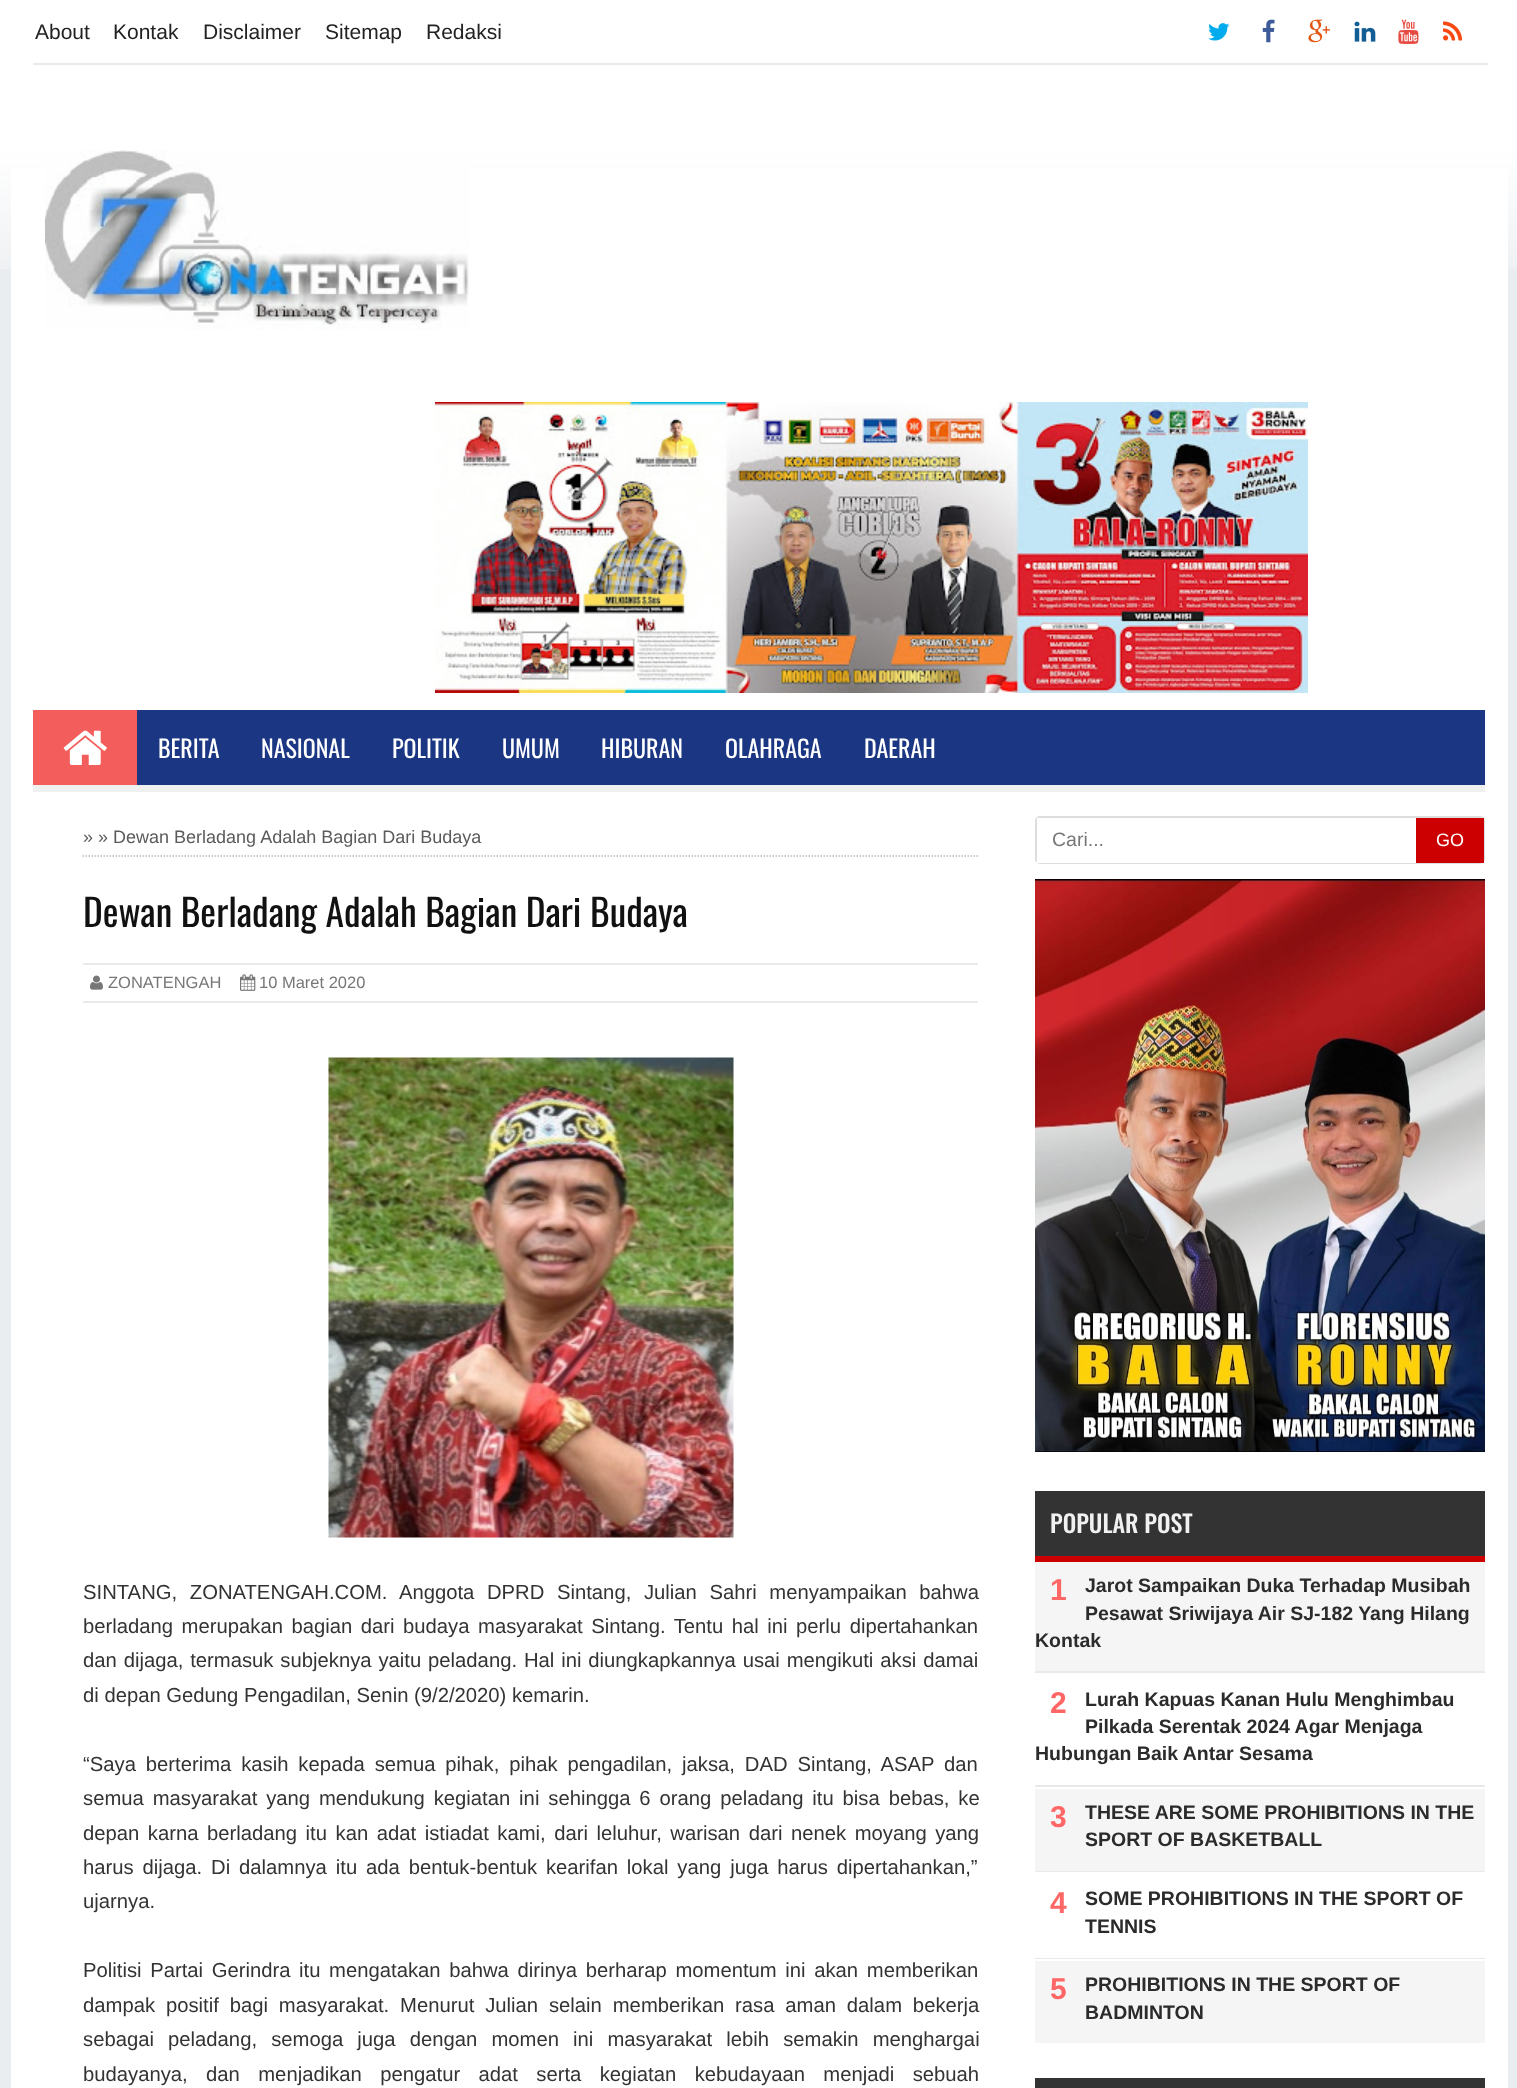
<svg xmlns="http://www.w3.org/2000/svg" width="1517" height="2088">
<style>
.a{font:21px Liberation Sans;fill:#222}
.b{font:24px Oswald;fill:#fff}
.c{font:18px Liberation Sans;fill:#5b5b5b}
.d{font:37.5px Oswald;fill:#111}
.e{font:16.5px Liberation Sans;fill:#777}
.f{font:20.25px Liberation Sans;fill:#333}
.g{font:19.5px Liberation Sans;fill:#777}
.h{font:18px Liberation Sans;fill:#fff}
.i{font:500 24px Oswald;fill:#f1f1f1}
.j{font:bold 19.5px Liberation Sans;fill:#2b2b2b}
.k{font:bold 30px Liberation Sans;fill:#f66}
</style>
<rect width="100%" height="100%" fill="#eaedf0"/>
<image href="1.png" x="0" y="0" width="1517" height="269"/>
<path fill="#fff" d="M11 168h1497v1920H11z"/>
<path fill="#e9e9e9" d="M33 63h1455v2H33z"/>
<image href="2.png" x="1208" y="23" width="22" height="18"/>
<image href="3.png" x="1262" y="19" width="13" height="24"/>
<image href="4.png" x="1308" y="19" width="22" height="24"/>
<image href="5.png" x="1354" y="21" width="22" height="21"/>
<image href="6.png" x="1398" y="19" width="21" height="25"/>
<image href="7.png" x="1443" y="21" width="20" height="20"/>
<image href="8.png" x="45" y="150" width="424" height="180"/>
<image href="9.png" x="435" y="402" width="873" height="291"/>
<path fill="#f0f0f0" d="M33 785h1452v7H33z"/>
<path fill="#1b3682" d="M137 710h1348v75H137z"/>
<path fill="#f35d5c" d="M33 710h104v75H33z"/>
<image href="10.png" x="63" y="730" width="44" height="35"/>
<path fill="none" stroke="#bbb" stroke-width="1.5" stroke-dasharray="1.5 1.5" d="M82.5 856h895.5"/>
<path fill="#e9e9e9" d="M83 963h895v2H83z"/>
<path fill="#e9e9e9" d="M83 1001h895v2H83z"/>
<image href="11.png" x="90" y="975" width="13" height="15"/>
<image href="12.png" x="240" y="974" width="16" height="17"/>
<image href="13.png" x="328" y="1057" width="406" height="481"/>
<rect fill="none" stroke="#ddd" stroke-width="2" x="1036" y="817" width="448" height="46" rx="4"/>
<path fill="#fff" d="M1037 818h379v45H1037z"/>
<path fill="#c00" d="M1416 818h68v45H1416z"/>
<image href="14.png" x="1035" y="879" width="450" height="573"/>
<path fill="#333" d="M1035 1491h450v65H1035z"/>
<path fill="#c00" d="M1035 1556h450v6H1035z"/>
<path fill="#f5f5f5" d="M1035 1562h450v109H1035z"/>
<path fill="#e9e9e9" d="M1035 1671h450v2H1035z"/>
<path fill="#e9e9e9" d="M1035 1785h450v2H1035z"/>
<path fill="#f5f5f5" d="M1035 1789h450v82H1035z"/>
<path fill="#e9e9e9" d="M1035 1871h450v1H1035z"/>
<path fill="#e9e9e9" d="M1035 1958h450v1H1035z"/>
<path fill="#f5f5f5" d="M1035 1961h450v82H1035z"/>
<path fill="#333" d="M1035 2078h450v10H1035z"/>
<text class="a" x="35" y="39">About</text>
<text class="a" x="113" y="39">Kontak</text>
<text class="a" x="203" y="39">Disclaimer</text>
<text class="a" x="325" y="39">Sitemap</text>
<text class="a" x="426" y="39">Redaksi</text>
<text class="b" x="158" y="758">BERITA</text>
<text class="b" x="261" y="758">NASIONAL</text>
<text class="b" x="392" y="758">POLITIK</text>
<text class="b" x="502" y="758">UMUM</text>
<text class="b" x="601" y="758">HIBURAN</text>
<text class="b" x="725" y="758">OLAHRAGA</text>
<text class="b" x="864" y="758">DAERAH</text>
<text class="c" x="83" y="843">» » Dewan Berladang Adalah Bagian Dari Budaya</text>
<text class="d" x="83" y="927">Dewan Berladang Adalah Bagian Dari Budaya</text>
<text class="e" x="108" y="988">ZONATENGAH</text>
<text class="e" x="259" y="988">10 Maret 2020</text>
<text class="f" x="83" y="1599" word-spacing="7">SINTANG, ZONATENGAH.COM. Anggota DPRD Sintang, Julian Sahri menyampaikan bahwa</text>
<text class="f" x="83" y="1633" word-spacing="2.9">berladang merupakan bagian dari budaya masyarakat Sintang. Tentu hal ini perlu dipertahankan</text>
<text class="f" x="83" y="1667" word-spacing="1.25">dan dijaga, termasuk subjeknya yaitu peladang. Hal ini diungkapkannya usai mengikuti aksi damai</text>
<text class="f" x="83" y="1702">di depan Gedung Pengadilan, Senin (9/2/2020) kemarin.</text>
<text class="f" x="83" y="1771" word-spacing="4.25">“Saya berterima kasih kepada semua pihak, pihak pengadilan, jaksa, DAD Sintang, ASAP dan</text>
<text class="f" x="83" y="1805" word-spacing="3.25">semua masyarakat yang mendukung kegiatan ini sehingga 6 orang peladang itu bisa bebas, ke</text>
<text class="f" x="83" y="1840" word-spacing="2.9">depan karna berladang itu kan adat istiadat kami, dari leluhur, warisan dari nenek moyang yang</text>
<text class="f" x="83" y="1874" word-spacing="3.25">harus dijaga. Di dalamnya itu ada bentuk-bentuk kearifan lokal yang juga harus dipertahankan,”</text>
<text class="f" x="83" y="1908">ujarnya.</text>
<text class="f" x="83" y="1977" word-spacing="3">Politisi Partai Gerindra itu mengatakan bahwa dirinya berharap momentum ini akan memberikan</text>
<text class="f" x="83" y="2012" word-spacing="5.25">dampak positif bagi masyarakat. Menurut Julian selain memberikan rasa aman dalam bekerja</text>
<text class="f" x="83" y="2046" word-spacing="8.5">sebagai peladang, semoga juga dengan momen ini masyarakat lebih semakin menghargai</text>
<text class="f" x="83" y="2081" word-spacing="12.75">budayanya, dan menjadikan pengatur adat serta kegiatan kebudayaan menjadi sebuah</text>
<text class="g" x="1052" y="846">Cari...</text>
<text class="h" x="1436" y="846">GO</text>
<text class="i" x="1050" y="1533">POPULAR POST</text>
<text class="j" x="1085" y="1592">Jarot Sampaikan Duka Terhadap Musibah</text>
<text class="j" x="1085" y="1620">Pesawat Sriwijaya Air SJ-182 Yang Hilang</text>
<text class="j" x="1035" y="1647">Kontak</text>
<text class="k" x="1050" y="1600">1</text>
<text class="j" x="1085" y="1706">Lurah Kapuas Kanan Hulu Menghimbau</text>
<text class="j" x="1085" y="1733">Pilkada Serentak 2024 Agar Menjaga</text>
<text class="j" x="1035" y="1760">Hubungan Baik Antar Sesama</text>
<text class="k" x="1050" y="1713">2</text>
<text class="k" x="1050" y="1827">3</text>
<text class="j" x="1085" y="1819">THESE ARE SOME PROHIBITIONS IN THE</text>
<text class="j" x="1085" y="1846">SPORT OF BASKETBALL</text>
<text class="k" x="1050" y="1913">4</text>
<text class="j" x="1085" y="1905">SOME PROHIBITIONS IN THE SPORT OF</text>
<text class="j" x="1085" y="1933">TENNIS</text>
<text class="k" x="1050" y="1999">5</text>
<text class="j" x="1085" y="1991">PROHIBITIONS IN THE SPORT OF</text>
<text class="j" x="1085" y="2019">BADMINTON</text>
</svg>
